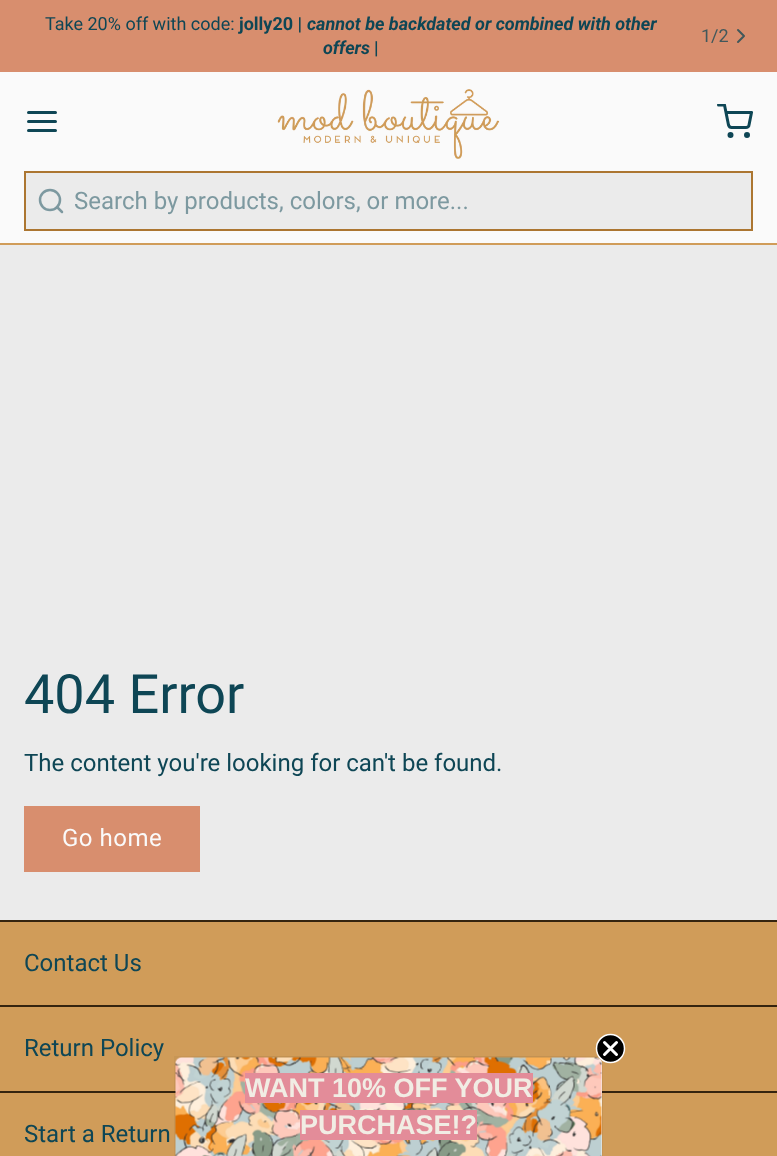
<svg xmlns="http://www.w3.org/2000/svg" width="777" height="1156">
<style>
.a{font:18px Roboto;fill:#0e4655}
.b{font:bold 18px Roboto;fill:#0e4655}
.c{font:italic bold 18px Roboto;fill:#0e4655}
.d{font:18px Roboto;fill:#41585b}
.e{font:24px Roboto;fill:#7d99a0}
.f{font:54px Roboto;fill:#0e4655}
.g{font:24px Roboto;fill:#0e4655}
.h{font:24px Roboto;letter-spacing:0.5px;fill:#fafafa}
.i{font:bold 27px Liberation Sans;fill:#f1ede4}
</style>
<defs>
<clipPath id="clip1"><path d="M717 104h36v36H717z"/></clipPath>
</defs>
<rect width="100%" height="100%" fill="#fafafa"/>
<path fill="#d88e6e" d="M0 0h777v72H0z"/>
<path fill="none" stroke="#41585b" stroke-width="2" stroke-linecap="round" stroke-linejoin="round" d="M738 42l6-6l-6-6"/>
<path fill="#d09c59" d="M0 243h777v2H0z"/>
<path fill="none" stroke="#0e4655" stroke-width="3" stroke-linecap="round" stroke-linejoin="round" d="M28.5 121.5h27m-27-9h27m-27 18h27"/>
<image href="1.png" x="277" y="89" width="223" height="70"/>
<circle fill="none" stroke="#0e4655" stroke-width="3" cx="730.5" cy="135" r="1.5"/>
<circle fill="none" stroke="#0e4655" stroke-width="3" cx="747" cy="135" r="1.5"/>
<g clip-path="url(#clip1)">
<path fill="none" stroke="#0e4655" stroke-width="3" stroke-linecap="round" stroke-linejoin="round" d="M718.5 105h6l4 20c.5 1.5 1.5 2.5 3 2.5h14.5c1.5 0 3-1 3-2.5l2.5-12.5h-25.5"/>
</g>
<path fill="#ebebeb" stroke="#ac7631" stroke-width="2" d="M25 172h727v58H25z"/>
<circle fill="none" stroke="#7d99a0" stroke-width="2.5" cx="50" cy="200" r="10"/>
<path fill="none" stroke="#7d99a0" stroke-width="2.5" stroke-linecap="round" stroke-linejoin="round" d="M62 212l-5-5"/>
<path fill="#ebebeb" d="M0 245h777v675H0z"/>
<path fill="#d88e6e" d="M24 806h176v66H24z"/>
<path fill="#d09c59" d="M0 922h777v234H0z"/>
<path fill="#35240f" d="M0 920h777v2H0z"/>
<path fill="#35240f" d="M0 1005h777v2H0z"/>
<path fill="#35240f" d="M0 1091h777v2H0z"/>
<path fill="#fff" d="M182 1058h414c3.5 0 6 2.5 6 6v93h-426v-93c0-3.5 2.5-6 6-6z"/>
<image href="2.png" x="174" y="1056" width="429" height="100"/>
<circle fill="#000" stroke="#fff" stroke-width="1.5" cx="610.5" cy="1048.5" r="14"/>
<path fill="none" stroke="#fff" stroke-width="3" stroke-linecap="round" stroke-linejoin="round" d="M604.5 1042.5l12 12m-12 0l12-12z"/>
<path fill="#e38c99" d="M245 1073h288v30H245z"/>
<path fill="#e38c99" d="M300 1110h177v30H300z"/>
<text class="a" x="45" y="30">Take 20% off with code:</text>
<text class="b" x="239" y="30">jolly20 |</text>
<text class="c" x="307" y="30">cannot be backdated or combined with other</text>
<text class="c" x="323" y="54">offers</text>
<text class="b" x="374" y="54">|</text>
<text class="d" x="701" y="42">1/2</text>
<text class="e" x="74" y="209">Search by products, colors, or more...</text>
<text class="f" x="24" y="713">404 Error</text>
<text class="g" x="24" y="771">The content you're looking for can't be found.</text>
<text class="h" x="62" y="846">Go home</text>
<text class="g" x="24" y="971">Contact Us</text>
<text class="g" x="24" y="1056">Return Policy</text>
<text class="g" x="24" y="1142">Start a Return</text>
<text class="i" x="245" y="1097">WANT 10% OFF YOUR</text>
<text class="i" x="300" y="1134">PURCHASE!?</text>
</svg>
